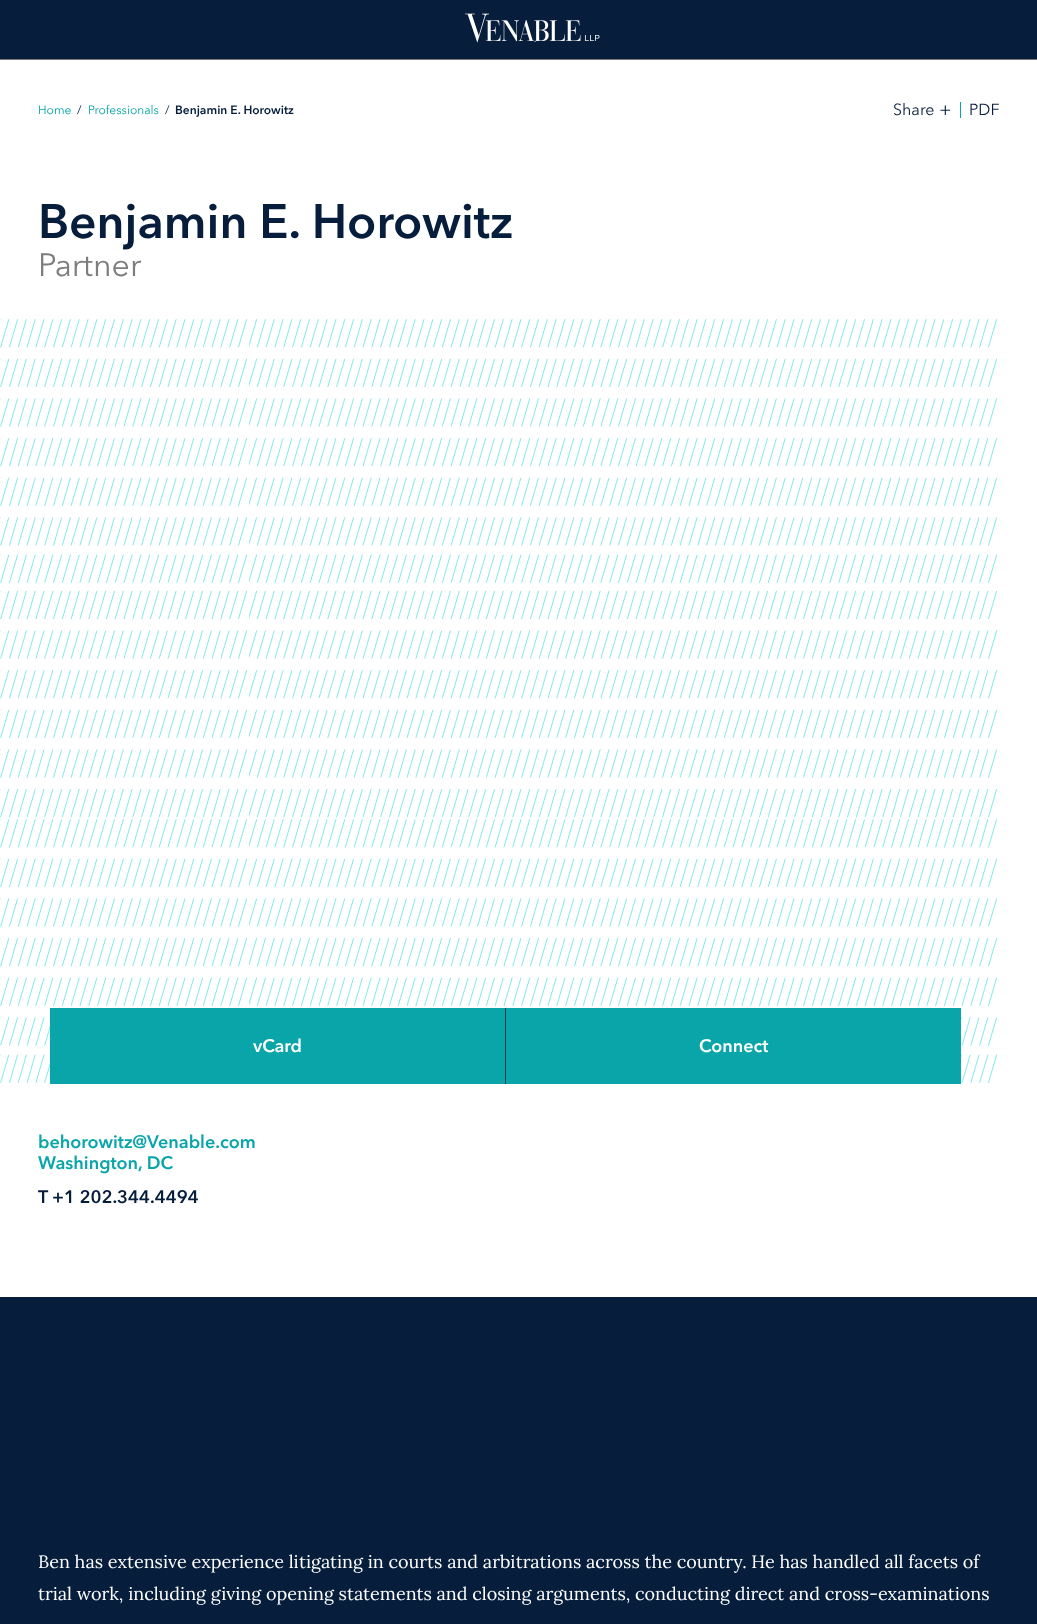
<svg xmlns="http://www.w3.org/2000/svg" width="1037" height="1624">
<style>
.a{font:12px 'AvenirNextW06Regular';fill:#09a5a8}
.b{font:12px 'AvenirNextW06Regular';fill:#061e3c}
.c{font:bold 12px 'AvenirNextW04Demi';fill:#061e3c}
.d{font:16px 'AvenirNextW06Regular';fill:#061e3c}
.e{font:19px 'AvenirNextW06Regular';fill:#061e3c}
.f{font:bold 48px 'AvenirNextW04Demi';fill:#061e3c}
.g{font:32px 'AvenirNextW06Regular';fill:#7d7d7d}
.h{font:bold 18px 'AvenirNextW04Demi';fill:#fff}
.i{font:bold 18px 'AvenirNextW04Demi';fill:#09a5a8}
.j{font:bold 18px 'AvenirNextW04Demi';fill:#061e3c}
.k{font:18px Lora;fill:#fff}
</style>
<rect width="100%" height="100%" fill="#fff"/>
<path fill="#061e3c" d="M0 0h1037v59H0z"/>
<path fill="#7c7c7c" d="M0 59h1037v1H0z"/>
<image href="1.png" x="465" y="13" width="135" height="30"/>
<path fill="#09a5a8" d="M960 102h1v16H960z"/>
<image href="2.png" x="0" y="319" width="998" height="764"/>
<path fill="#09a5a8" d="M50 1008h911v76H50z"/>
<path fill="#073952" d="M505 1008h1v76H505z"/>
<path fill="#061e3c" d="M0 1297h1037v327H0z"/>
<text class="a" x="38" y="114">Home</text>
<text class="b" x="77" y="114">/</text>
<text class="a" x="88" y="114">Professionals</text>
<text class="b" x="165" y="114">/</text>
<text class="c" x="175" y="114">Benjamin E. Horowitz</text>
<text class="d" x="893" y="115">Share</text>
<text class="e" x="939" y="116">+</text>
<text class="d" x="969" y="115">PDF</text>
<text class="f" x="38" y="238">Benjamin E. Horowitz</text>
<text class="g" x="38" y="276">Partner</text>
<text class="h" x="253" y="1052">vCard</text>
<text class="h" x="699" y="1052">Connect</text>
<text class="i" x="38" y="1148">behorowitz@Venable.com</text>
<text class="i" x="38" y="1169">Washington, DC</text>
<text class="j" x="38" y="1203">T</text>
<text class="j" x="52" y="1203">+1 202.344.4494</text>
<text class="k" x="38" y="1568">Ben has extensive experience litigating in courts and arbitrations across the country. He has handled all facets of</text>
<text class="k" x="38" y="1600">trial work, including giving opening statements and closing arguments, conducting direct and cross-examinations</text>
</svg>
